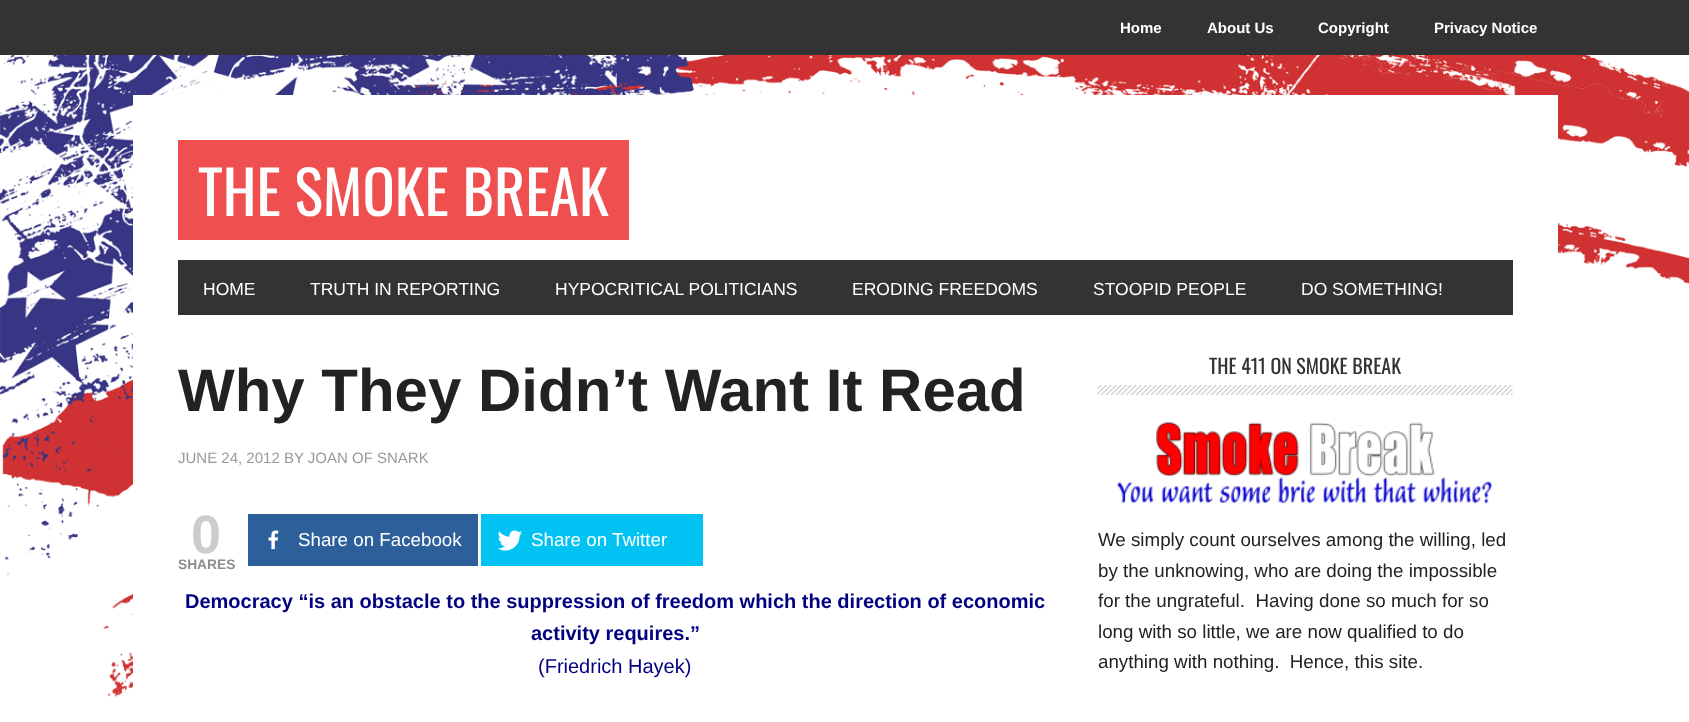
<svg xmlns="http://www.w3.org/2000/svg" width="1689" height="722">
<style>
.a{font:bold 15px Liberation Sans;fill:#fff}
.b{font:60px Oswald;fill:#fff}
.c{font:17.5px Liberation Sans;fill:#fff}
.d{font:bold 60px Liberation Sans;fill:#222}
.e{font:15px Liberation Sans;fill:#999}
.f{font:bold 54px Liberation Sans;fill:#ccc}
.g{font:bold 13.75px Liberation Sans;fill:#8a8c8e}
.h{font:18.75px Liberation Sans;fill:#fff}
.i{font:bold 20px Liberation Sans;fill:#000080}
.j{font:20px Liberation Sans;fill:#000080}
.k{font:20px Oswald;fill:#333}
.l{font:18.75px Liberation Sans;fill:#222}
</style>
<rect width="100%" height="100%" fill="#fff"/>
<path fill="#333" d="M0 0h1689v55H0z"/>
<image href="1.png" x="0" y="55" width="1689" height="642"/>
<path fill="#fff" d="M133 95h1425v593H133z"/>
<path fill="#ef4f4f" d="M178 140h451v100H178z"/>
<path fill="#333" d="M178 260h1335v55H178z"/>
<path fill="#2d5f9a" d="M248 514h230v52H248z"/>
<image href="2.png" x="268" y="530" width="11" height="20"/>
<path fill="#00c3f3" d="M481 514h222v52H481z"/>
<image href="3.png" x="497" y="530" width="25" height="21"/>
<image href="4.png" x="1097" y="385" width="416" height="10"/>
<image href="5.png" x="1117" y="422" width="375" height="82"/>
<text class="a" x="1120" y="33">Home</text>
<text class="a" x="1207" y="33">About Us</text>
<text class="a" x="1318" y="33">Copyright</text>
<text class="a" x="1434" y="33">Privacy Notice</text>
<text class="b" x="198" y="216">THE SMOKE BREAK</text>
<text class="c" x="203" y="295">HOME</text>
<text class="c" x="310" y="295">TRUTH IN REPORTING</text>
<text class="c" x="555" y="295">HYPOCRITICAL POLITICIANS</text>
<text class="c" x="852" y="295">ERODING FREEDOMS</text>
<text class="c" x="1093" y="295">STOOPID PEOPLE</text>
<text class="c" x="1301" y="295">DO SOMETHING!</text>
<text class="d" x="178" y="411">Why They Didn’t Want It Read</text>
<text class="e" x="178" y="463">JUNE 24, 2012 BY JOAN OF SNARK</text>
<text class="f" x="191" y="553">0</text>
<text class="g" x="178" y="569">SHARES</text>
<text class="h" x="298" y="546">Share on Facebook</text>
<text class="h" x="531" y="546">Share on Twitter</text>
<text class="i" x="185" y="608">Democracy “is an obstacle to the suppression of freedom which the direction of economic</text>
<text class="i" x="531" y="640">activity requires.”</text>
<text class="j" x="538" y="673">(Friedrich Hayek)</text>
<text class="k" x="1209" y="374">THE 411 ON SMOKE BREAK</text>
<text class="l" x="1098" y="546">We simply count ourselves among the willing, led</text>
<text class="l" x="1098" y="577">by the unknowing, who are doing the impossible</text>
<text class="l" xml:space="preserve" x="1098" y="607">for the ungrateful.  Having done so much for so</text>
<text class="l" x="1098" y="638">long with so little, we are now qualified to do</text>
<text class="l" xml:space="preserve" x="1098" y="668">anything with nothing.  Hence, this site.</text>
</svg>
